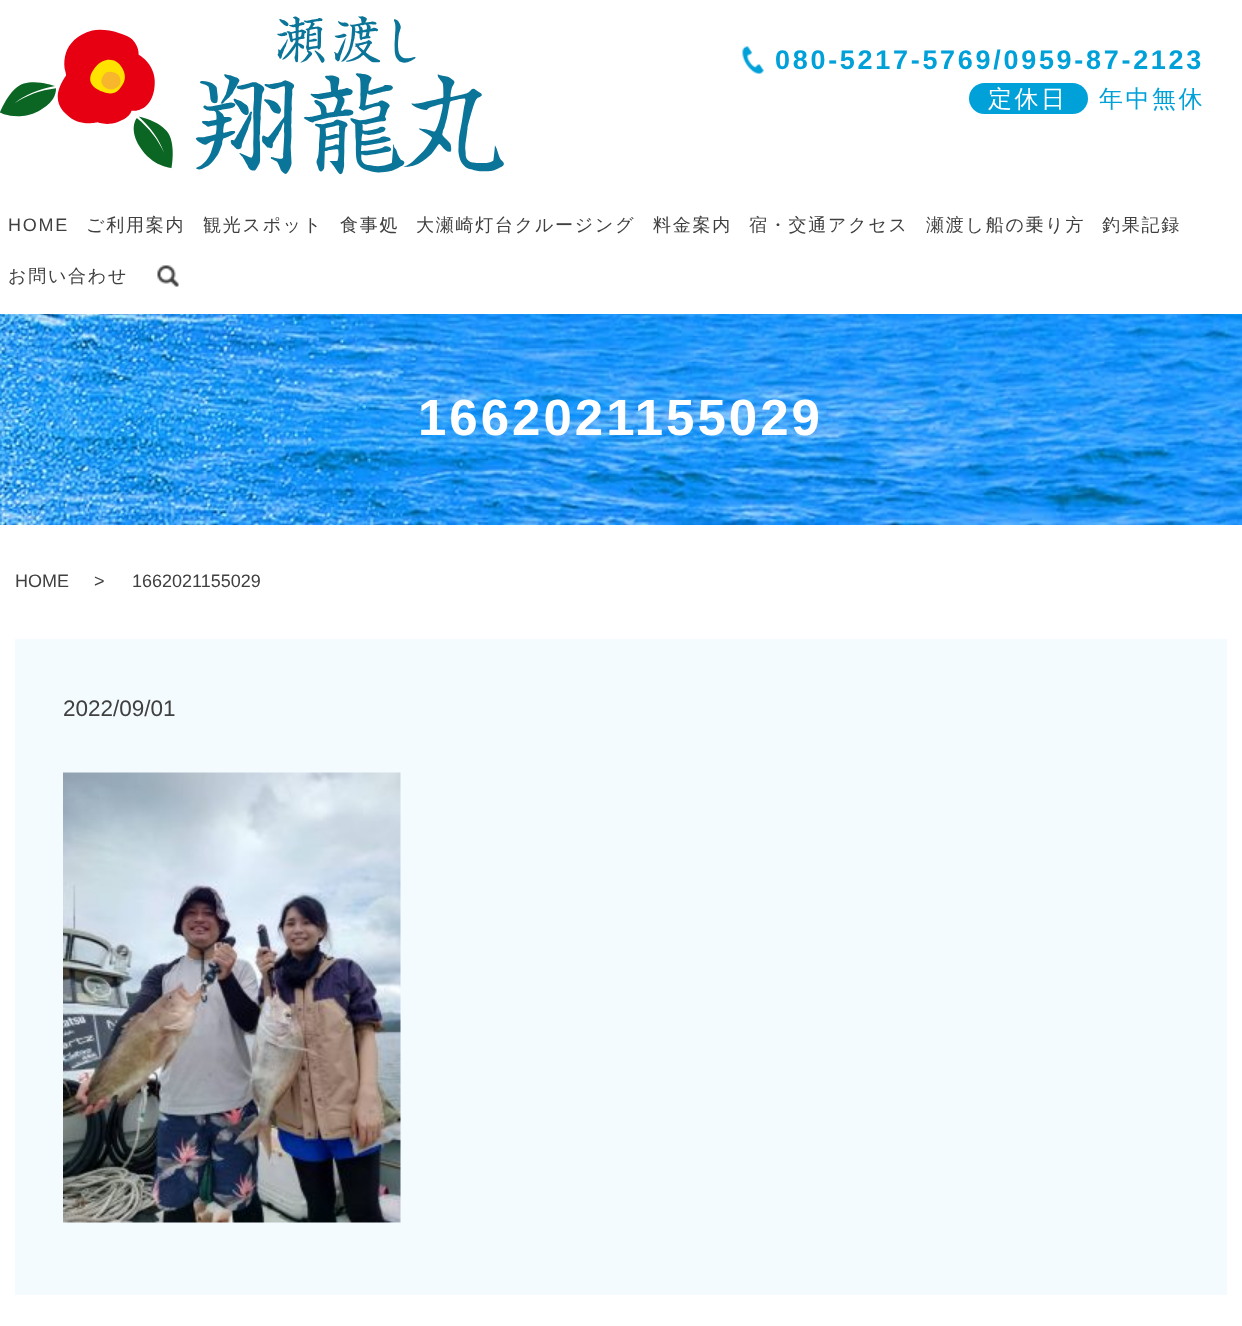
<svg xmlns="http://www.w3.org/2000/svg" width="1242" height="1326">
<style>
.a{font:bold 27px Liberation Sans;letter-spacing:2.7px;fill:#00a0d8}
.b{font:500 24px WenQuanYi Zen Hei;letter-spacing:2.5px;fill:#fff}
.c{font:500 24px WenQuanYi Zen Hei;letter-spacing:2.5px;fill:#00a0d8}
.d{font:18px Liberation Sans;letter-spacing:1.75px;fill:#404040}
.e{font:500 18px WenQuanYi Zen Hei;letter-spacing:1.75px;fill:#404040}
.f{font:bold 51px Liberation Sans;letter-spacing:3px;fill:#fff}
.g{font:18px Liberation Sans;fill:#404040}
.h{font:22.5px Liberation Sans;fill:#404040}
</style>
<rect width="100%" height="100%" fill="#fff"/>
<image href="1.png" x="0" y="16" width="504" height="159"/>
<image href="2.png" x="742" y="46" width="22" height="28"/>
<rect fill="#00a0d8" x="969" y="83" width="119" height="31" rx="15.5"/>
<image href="3.png" x="157" y="265" width="22" height="22"/>
<image href="4.png" x="0" y="314" width="1242" height="211"/>
<path fill="#f3fbfe" d="M15 639h1212v656H15z"/>
<image href="5.png" x="63" y="772" width="338" height="451"/>
<text class="a" x="775" y="69">080-5217-5769/0959-87-2123</text>
<text class="b" x="988" y="107">定休日</text>
<text class="c" x="1099" y="107">年中無休</text>
<text class="d" x="8" y="231">HOME</text>
<text class="e" x="86" y="231">ご利用案内</text>
<text class="e" x="203" y="231">観光スポット</text>
<text class="e" x="340" y="231">食事処</text>
<text class="e" x="416" y="231">大瀬崎灯台クルージング</text>
<text class="e" x="653" y="231">料金案内</text>
<text class="e" x="749" y="231">宿・交通アクセス</text>
<text class="e" x="926" y="231">瀬渡し船の乗り方</text>
<text class="e" x="1102" y="231">釣果記録</text>
<text class="e" x="8" y="282">お問い合わせ</text>
<text class="f" x="418" y="435">1662021155029</text>
<text class="g" x="15" y="587">HOME</text>
<text class="g" x="94" y="587">&gt;</text>
<text class="g" x="132" y="587">1662021155029</text>
<text class="h" x="63" y="716">2022/09/01</text>
</svg>
